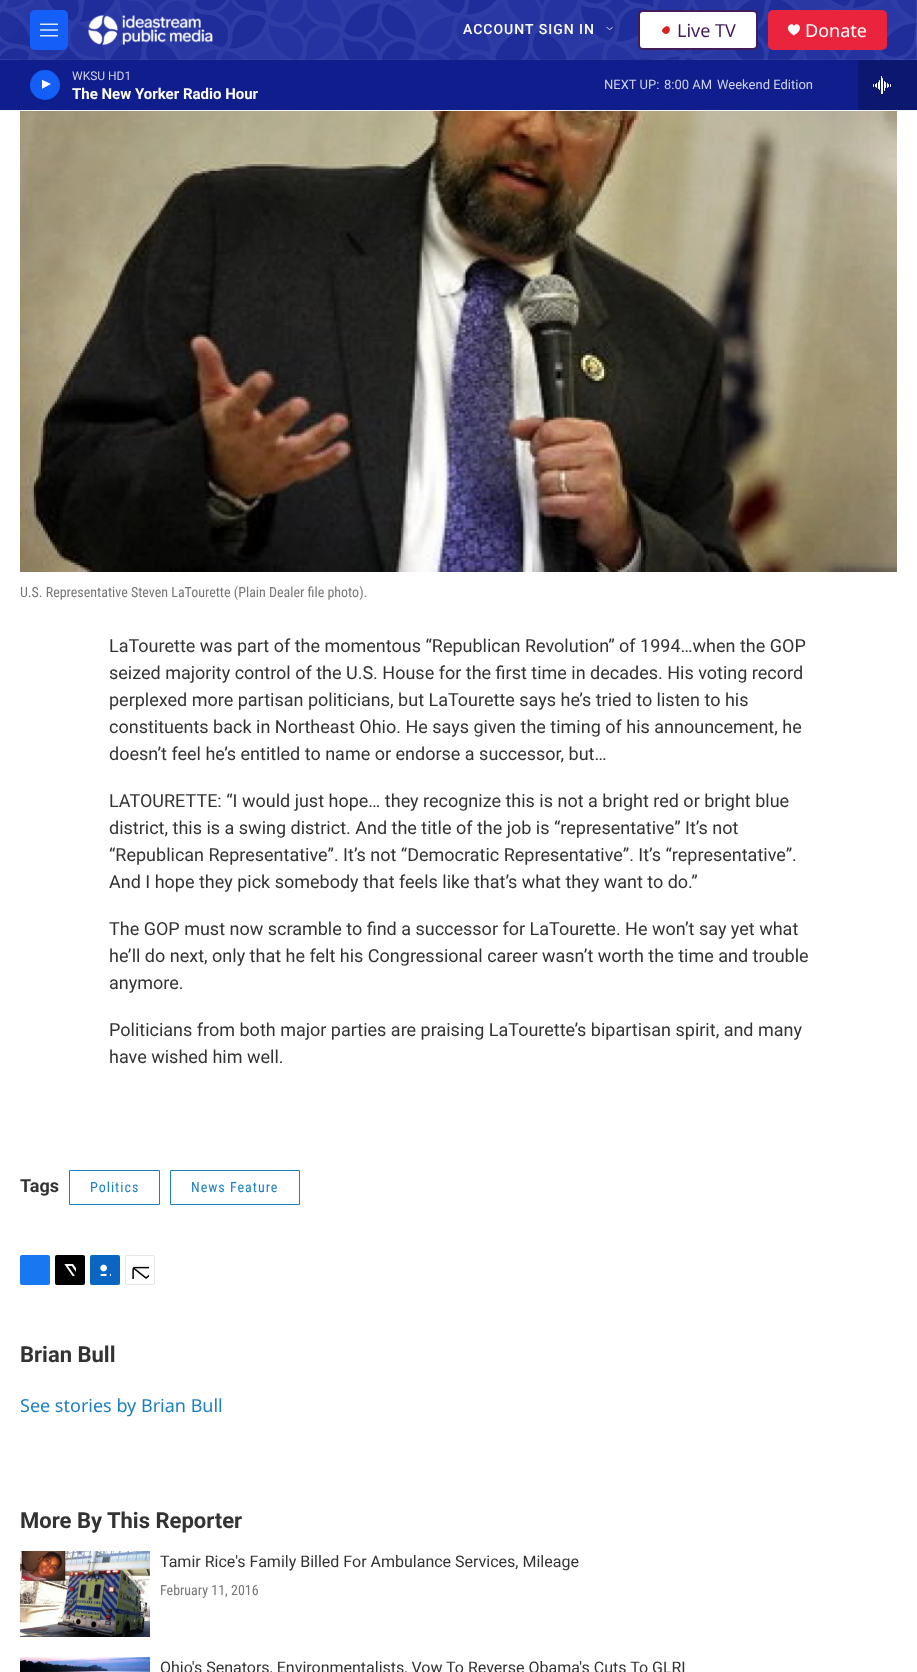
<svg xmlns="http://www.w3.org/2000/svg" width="917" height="1672">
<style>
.a{font:500 14px Roboto;letter-spacing:1px;fill:#fff}
.b{font:18px Noto Sans;fill:#411c58}
.c{font:18px Noto Sans;fill:#fff}
.d{font:12px Roboto;fill:#cfd2e8}
.e{font:bold 15px 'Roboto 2';fill:#fff}
.f{font:13px Roboto;fill:#cfd2e8}
.g{font:14px Roboto Condensed;fill:#767676}
.h{font:18px Roboto;fill:#333}
.i{font:bold 18px Roboto;fill:#333}
.j{font:14px Roboto Condensed;letter-spacing:1px;fill:#1a7fc3}
.k{font:bold 22px Roboto;fill:#333}
.l{font:18px Noto Sans;fill:#1a7fc3}
.m{font:16px Roboto;fill:#333}
</style>
<defs>
<clipPath id="clip1"><path d="M42 78h12v15H42z"/></clipPath>
</defs>
<rect width="100%" height="100%" fill="#fff"/>
<image href="6.png" x="20" y="59" width="877" height="513"/>
<path fill="#f5f5f5" d="M0 110h917v1H0z"/>
<image href="1.png" x="0" y="0" width="917" height="60"/>
<rect fill="#145ff8" x="30" y="10" width="38" height="40" rx="5"/>
<image href="2.png" x="40" y="23" width="18" height="14"/>
<image href="3.png" x="88" y="15" width="125" height="30"/>
<image href="4.png" x="606" y="26" width="7" height="4"/>
<rect fill="#fff" stroke="#411c58" stroke-width="2" x="639" y="11" width="118" height="38" rx="4"/>
<path fill="#d62021" d="M667 26c6 1.5 1.5 11-3.5 7c-.5-.5-1.5-1.5-1.5-2c0-2.5 3-4.5 5-5z"/>
<rect fill="#ea243c" x="768" y="10" width="119" height="40" rx="5"/>
<path fill="#fff" d="M794 26c-2-5-12.5 2 0 9.5c12.5-7.5 2-14.5 0-9.5z"/>
<path fill="#0f1e8c" d="M0 60h858v50H0z"/>
<circle fill="#145ff8" cx="45" cy="85" r="15"/>
<g clip-path="url(#clip1)">
<path fill="#fff" d="M41.5 79.5l9.5 4.5l-9.5 5z"/>
</g>
<path fill="#0c1870" d="M858 60h59v50H858z"/>
<image href="5.png" x="873" y="76" width="18" height="18"/>
<path fill="none" stroke="#1a7fc3" d="M69.5 1170.5h90v34H69.5z"/>
<path fill="none" stroke="#1a7fc3" d="M170.5 1170.5h129v34H170.5z"/>
<rect fill="#1778f2" x="20" y="1255" width="30" height="30" rx="2"/>
<rect fill="#000" x="55" y="1255" width="30" height="30" rx="2"/>
<image href="7.png" x="64" y="1264" width="12" height="12"/>
<rect fill="#0a66c1" x="90" y="1255" width="30" height="30" rx="2"/>
<image href="8.png" x="100" y="1264" width="11" height="12"/>
<rect fill="none" stroke="#e6e6e6" x="125.5" y="1255.5" width="29" height="29" rx="1.5"/>
<image href="9.png" x="132" y="1266" width="17" height="13"/>
<image href="10.png" x="20" y="1551" width="130" height="86"/>
<image href="11.png" x="20" y="1657" width="130" height="15"/>
<text class="a" x="463" y="34">ACCOUNT SIGN IN</text>
<text class="b" x="677" y="37">Live TV</text>
<text class="c" x="805" y="37">Donate</text>
<text class="d" x="72" y="80">WKSU HD1</text>
<text class="e" x="72" y="99">The New Yorker Radio Hour</text>
<text class="f" x="604" y="89">NEXT UP:</text>
<text class="f" x="664" y="89">8:00 AM</text>
<text class="f" x="717" y="89">Weekend Edition</text>
<text class="g" x="20" y="597">U.S. Representative Steven LaTourette (Plain Dealer file photo).</text>
<text class="h" x="109" y="652">LaTourette was part of the momentous “Republican Revolution” of 1994…when the GOP</text>
<text class="h" x="109" y="679">seized majority control of the U.S. House for the first time in decades. His voting record</text>
<text class="h" x="109" y="706">perplexed more partisan politicians, but LaTourette says he’s tried to listen to his</text>
<text class="h" x="109" y="733">constituents back in Northeast Ohio. He says given the timing of his announcement, he</text>
<text class="h" x="109" y="760">doesn’t feel he’s entitled to name or endorse a successor, but…</text>
<text class="h" x="109" y="807">LATOURETTE: “I would just hope… they recognize this is not a bright red or bright blue</text>
<text class="h" x="109" y="834">district, this is a swing district. And the title of the job is “representative” It’s not</text>
<text class="h" x="109" y="861">“Republican Representative”. It’s not “Democratic Representative”. It’s “representative”.</text>
<text class="h" x="109" y="888">And I hope they pick somebody that feels like that’s what they want to do.”</text>
<text class="h" x="109" y="935">The GOP must now scramble to find a successor for LaTourette. He won’t say yet what</text>
<text class="h" x="109" y="962">he’ll do next, only that he felt his Congressional career wasn’t worth the time and trouble</text>
<text class="h" x="109" y="989">anymore.</text>
<text class="h" x="109" y="1036">Politicians from both major parties are praising LaTourette’s bipartisan spirit, and many</text>
<text class="h" x="109" y="1063">have wished him well.</text>
<text class="i" x="20" y="1192">Tags</text>
<text class="j" x="90" y="1192">Politics</text>
<text class="j" x="191" y="1192">News Feature</text>
<text class="k" x="20" y="1362">Brian Bull</text>
<text class="l" x="20" y="1412">See stories by Brian Bull</text>
<text class="k" x="20" y="1528">More By This Reporter</text>
<text class="m" x="160" y="1567">Tamir Rice's Family Billed For Ambulance Services, Mileage</text>
<text class="g" x="160" y="1595">February 11, 2016</text>
<text class="m" x="160" y="1673">Ohio's Senators, Environmentalists, Vow To Reverse Obama's Cuts To GLRI</text>
</svg>
